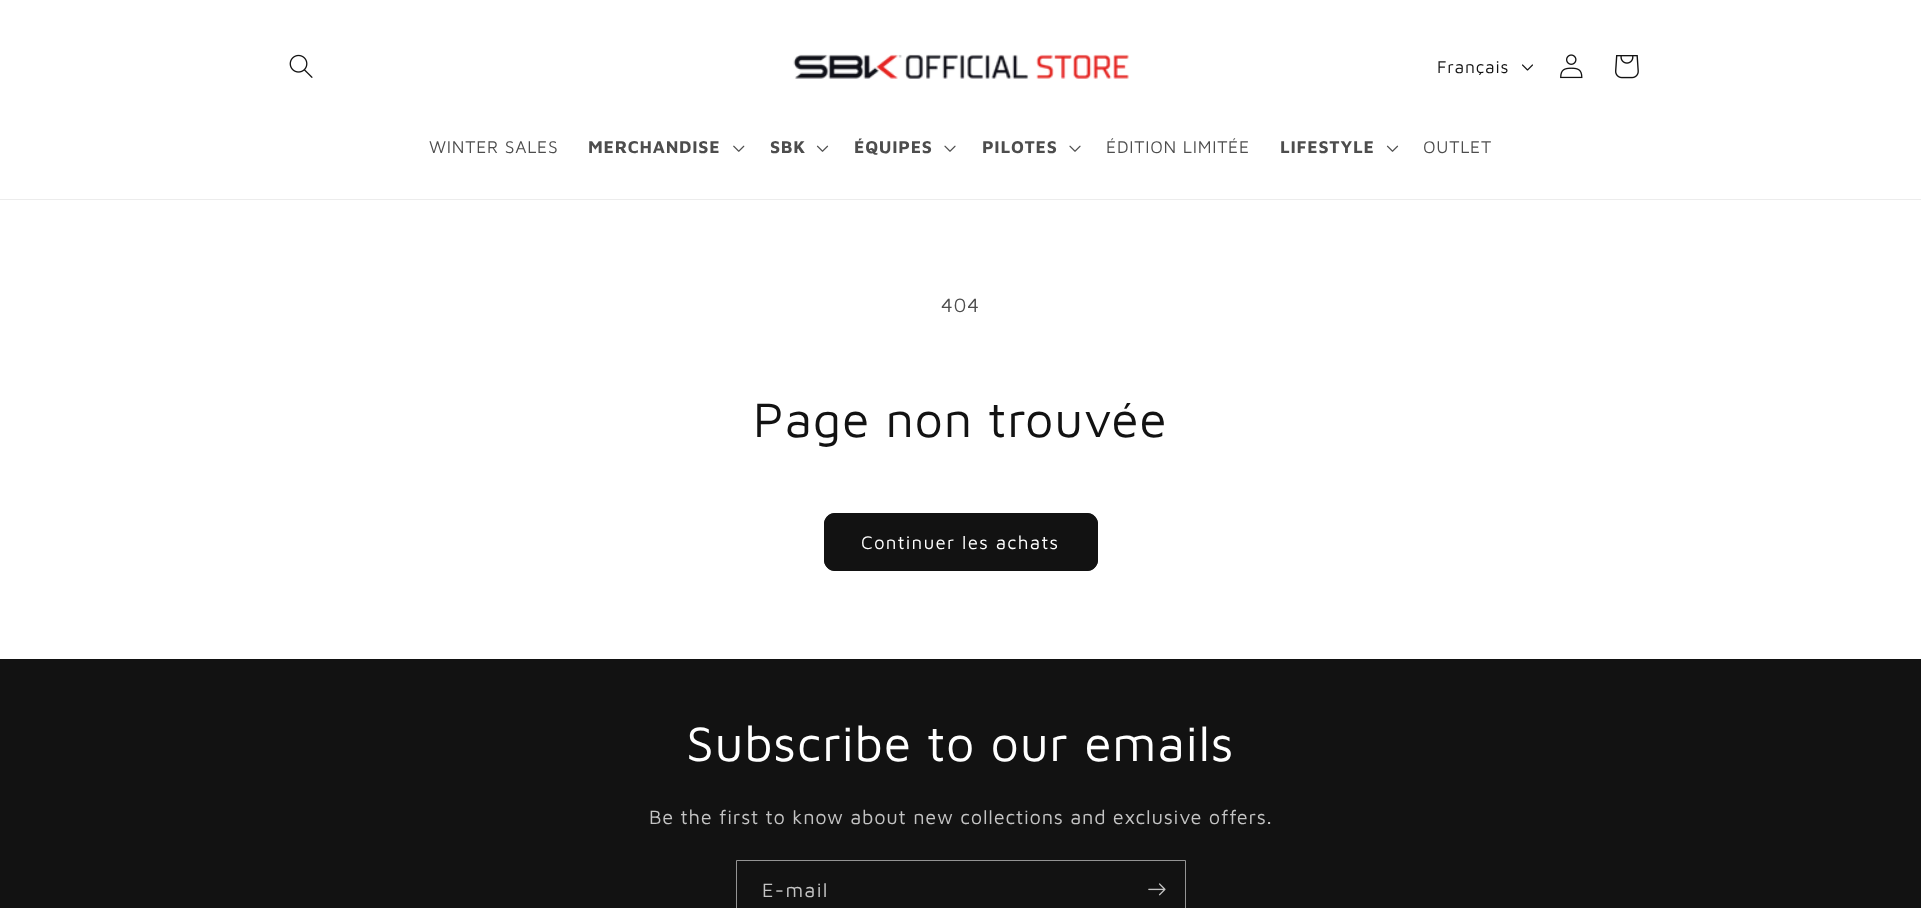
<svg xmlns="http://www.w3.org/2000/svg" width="1921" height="908">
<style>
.a{font:17.5px Maven Pro;letter-spacing:0.75px;fill:#121212}
.b{font:17.5px Maven Pro;letter-spacing:0.75px;fill:#4d4d4d}
.c{font:bold 17.5px Maven Pro;letter-spacing:0.75px;fill:#4d4d4d}
.d{font:20px Maven Pro;letter-spacing:0.75px;fill:#4d4d4d}
.e{font:50px Maven Pro;letter-spacing:0.75px;fill:#121212}
.f{font:18.75px Maven Pro;letter-spacing:1.25px;fill:#fff}
.g{font:50px Maven Pro;letter-spacing:0.75px;fill:#fff}
.h{font:20px Maven Pro;letter-spacing:0.75px;fill:#c4c4c4}
.i{font:20px Maven Pro;letter-spacing:1.25px;fill:#c4c4c4}
</style>
<rect width="100%" height="100%" fill="#fff"/>
<path fill="#ececec" d="M0 199h1921v1H0z"/>
<image href="1.png" x="289" y="54" width="24" height="24"/>
<image href="2.png" x="793" y="54" width="336" height="25"/>
<image href="3.png" x="1522" y="64" width="11" height="7"/>
<image href="4.png" x="1560" y="54" width="23" height="25"/>
<image href="5.png" x="1615" y="55" width="24" height="24"/>
<image href="6.png" x="733" y="145" width="12" height="7"/>
<image href="7.png" x="816" y="145" width="13" height="7"/>
<image href="8.png" x="944" y="145" width="12" height="7"/>
<image href="8.png" x="1069" y="145" width="12" height="7"/>
<image href="7.png" x="1386" y="145" width="13" height="7"/>
<rect fill="#121212" x="824" y="513" width="274" height="58" rx="11"/>
<rect fill="none" stroke="#121212" x="824.5" y="513.5" width="273" height="57" rx="10.5"/>
<path fill="#121212" d="M0 659h1921v249H0z"/>
<path fill="none" stroke="#949494" d="M736.5 860.5h449v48H736.5z"/>
<image href="9.png" x="1148" y="883" width="18" height="13"/>
<text class="a" x="1437" y="73">Français</text>
<text class="b" x="429" y="153">WINTER SALES</text>
<text class="c" x="588" y="153">MERCHANDISE</text>
<text class="c" x="770" y="153">SBK</text>
<text class="c" x="854" y="153">ÉQUIPES</text>
<text class="c" x="982" y="153">PILOTES</text>
<text class="b" x="1106" y="153">ÉDITION LIMITÉE</text>
<text class="c" x="1280" y="153">LIFESTYLE</text>
<text class="b" x="1423" y="153">OUTLET</text>
<text class="d" x="941" y="312">404</text>
<text class="e" x="753" y="437">Page non trouvée</text>
<text class="f" x="861" y="549">Continuer les achats</text>
<text class="g" x="686" y="761">Subscribe to our emails</text>
<text class="h" x="649" y="824">Be the first to know about new collections and exclusive offers.</text>
<text class="i" x="762" y="897">E-mail</text>
</svg>
